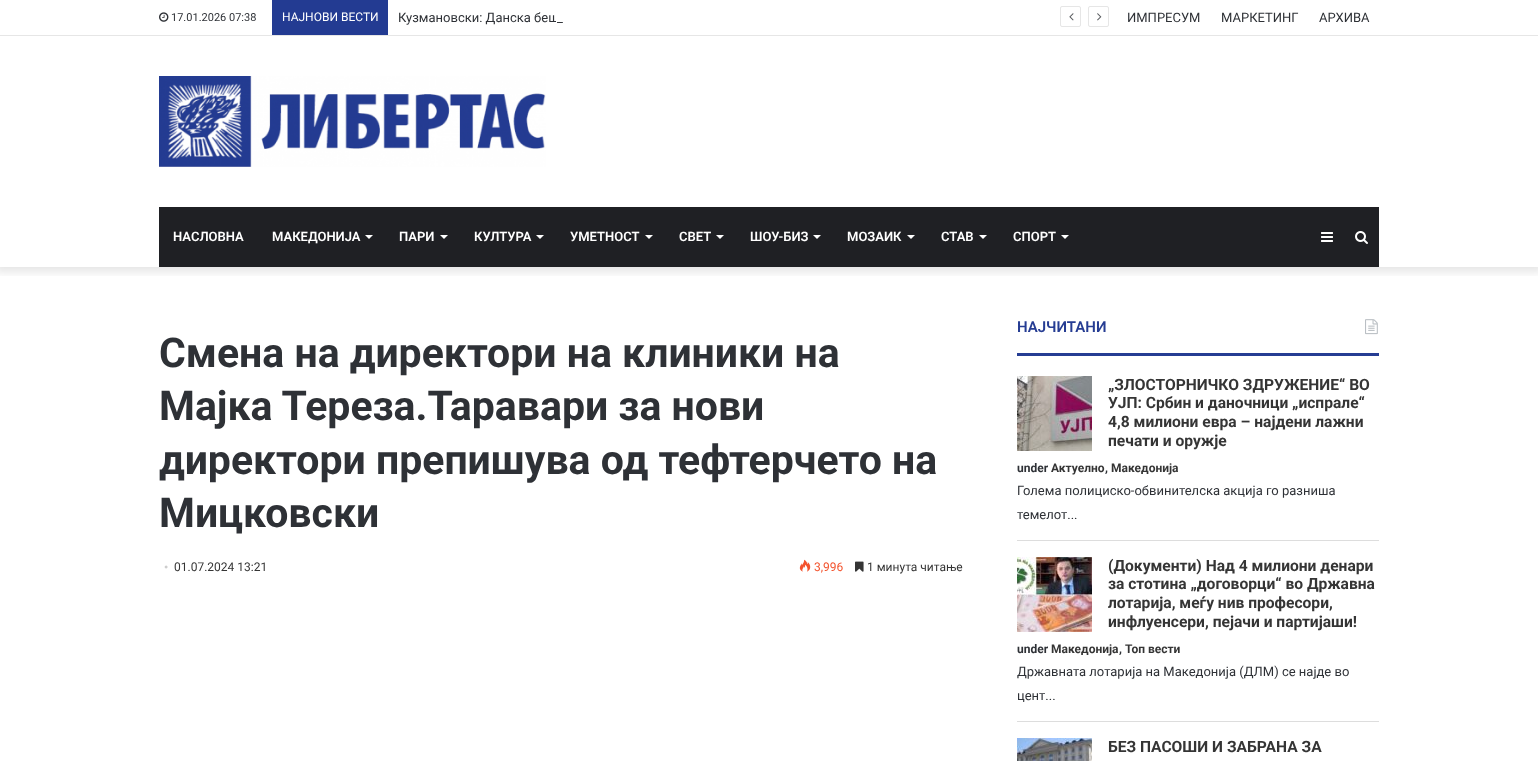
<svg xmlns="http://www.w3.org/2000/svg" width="1538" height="761">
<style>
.a{font:11px Roboto;fill:#2e3136}
.b{font:12px Roboto;fill:#fff}
.c{font:13px Roboto;fill:#2e3136}
.d{font:600 13px Roboto;fill:#fff}
.e{font:bold 41px Roboto;fill:#2e3136}
.f{font:12px Liberation Serif;fill:#cdcdcd}
.g{font:12px Roboto;fill:#353535}
.h{font:12px Roboto;fill:#f3522c}
.i{font:600 15px Roboto;fill:#263d93}
.j{font:bold 15.6px Roboto;fill:#353535}
.k{font:bold 12px Roboto;fill:#2e3136}
.l{font:bold 12px Roboto;fill:#353535}
</style>
<defs>
<clipPath id="clip1"><path d="M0 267h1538v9H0z"/></clipPath>
</defs>
<rect width="100%" height="100%" fill="#fff"/>
<g clip-path="url(#clip1)">
<path fill="#0000001a" filter="blur(5px)" d="M-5 -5h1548v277H-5z"/>
</g>
<path fill="#e6e6e6" d="M0 35h1538v1H0z"/>
<image href="1.png" x="159" y="12" width="10" height="10"/>
<path fill="#233b92" d="M272 0h116v35H272z"/>
<rect fill="none" stroke="#e6e6e6" x="1060.5" y="6.5" width="20" height="20" rx="1.5"/>
<image href="2.png" x="1069" y="13" width="5" height="8"/>
<rect fill="none" stroke="#e6e6e6" x="1088.5" y="6.5" width="20" height="20" rx="1.5"/>
<image href="3.png" x="1097" y="13" width="5" height="8"/>
<image href="4.png" x="159" y="76" width="387" height="91"/>
<path fill="#1f2024" d="M159 207h1220v60H159z"/>
<path fill="#fff" d="M365 235h8l-4 4z"/>
<path fill="#fff" d="M440 235h8l-4 4z"/>
<path fill="#fff" d="M536 235h8l-4 4z"/>
<path fill="#fff" d="M645 235h8l-4 4z"/>
<path fill="#fff" d="M716 235h8l-4 4z"/>
<path fill="#fff" d="M813 235h8l-4 4z"/>
<path fill="#fff" d="M907 235h8l-4 4z"/>
<path fill="#fff" d="M979 235h8l-4 4z"/>
<path fill="#fff" d="M1061 235h8l-4 4z"/>
<image href="5.png" x="1321" y="232" width="12" height="10"/>
<image href="6.png" x="1355" y="231" width="13" height="13"/>
<image href="7.png" x="799" y="559" width="12" height="13"/>
<image href="8.png" x="855" y="561" width="9" height="11"/>
<path fill="#263d93" d="M1017 353h362v3H1017z"/>
<image href="9.png" x="1365" y="319" width="13" height="16"/>
<path fill="#ddd" d="M1017 540h362v1H1017z"/>
<image href="10.png" x="1017" y="376" width="75" height="75"/>
<path fill="#ddd" d="M1017 721h362v1H1017z"/>
<image href="11.png" x="1017" y="557" width="75" height="75"/>
<image href="12.png" x="1017" y="738" width="75" height="23"/>
<text class="a" x="171" y="21">17.01.2026 07:38</text>
<text class="b" x="282" y="21">НАЈНОВИ ВЕСТИ</text>
<text class="c" x="398" y="22">Кузмановски: Данска беш</text>
<path fill="#fff" d="M556 15h2v7H556z"/>
<text class="c" x="557" y="22">_</text>
<text class="c" x="1127" y="22">ИМПРЕСУМ</text>
<text class="c" x="1221" y="22">МАРКЕТИНГ</text>
<text class="c" x="1319" y="22">АРХИВА</text>
<text class="d" x="173" y="241">НАСЛОВНА</text>
<text class="d" x="272" y="241">МАКЕДОНИЈА</text>
<text class="d" x="399" y="241">ПАРИ</text>
<text class="d" x="474" y="241">КУЛТУРА</text>
<text class="d" x="570" y="241">УМЕТНОСТ</text>
<text class="d" x="679" y="241">СВЕТ</text>
<text class="d" x="750" y="241">ШОУ-БИЗ</text>
<text class="d" x="847" y="241">МОЗАИК</text>
<text class="d" x="941" y="241">СТАВ</text>
<text class="d" x="1013" y="241">СПОРТ</text>
<text class="e" x="159" y="367">Смена на директори на клиники на</text>
<text class="e" x="159" y="420">Мајка Тереза.Таравари за нови</text>
<text class="e" x="159" y="474">директори препишува од тефтерчето на</text>
<text class="e" x="159" y="527">Мицковски</text>
<text class="f" x="164" y="571">•</text>
<text class="g" x="174" y="571">01.07.2024 13:21</text>
<text class="h" x="814" y="571">3,996</text>
<text class="g" x="867" y="571">1 минута читање</text>
<text class="i" x="1017" y="332">НАЈЧИТАНИ</text>
<text class="j" x="1108" y="390">„ЗЛОСТОРНИЧКО ЗДРУЖЕНИЕ“ ВО</text>
<text class="j" x="1108" y="408">УЈП: Србин и даночници „испрале“</text>
<text class="j" x="1108" y="427">4,8 милиони евра – најдени лажни</text>
<text class="j" x="1108" y="446">печати и оружје</text>
<text class="k" x="1017" y="472">under</text>
<text class="l" x="1051" y="472">Актуелно</text>
<text class="k" x="1105" y="472">,</text>
<text class="l" x="1111" y="472">Македонија</text>
<text class="c" x="1017" y="495">Голема полициско-обвинителска акција го разниша</text>
<text class="c" x="1017" y="519">темелот...</text>
<text class="j" x="1108" y="571">(Документи) Над 4 милиони денари</text>
<text class="j" x="1108" y="589">за стотина „договорци“ во Државна</text>
<text class="j" x="1108" y="608">лотарија, меѓу нив професори,</text>
<text class="j" x="1108" y="627">инфлуенсери, пејачи и партијаши!</text>
<text class="k" x="1017" y="653">under</text>
<text class="l" x="1051" y="653">Македонија</text>
<text class="k" x="1119" y="653">,</text>
<text class="l" x="1125" y="653">Топ вести</text>
<text class="c" x="1017" y="676">Државната лотарија на Македонија (ДЛМ) се најде во</text>
<text class="c" x="1017" y="700">цент...</text>
<text class="j" x="1108" y="752">БЕЗ ПАСОШИ И ЗАБРАНА ЗА</text>
</svg>
